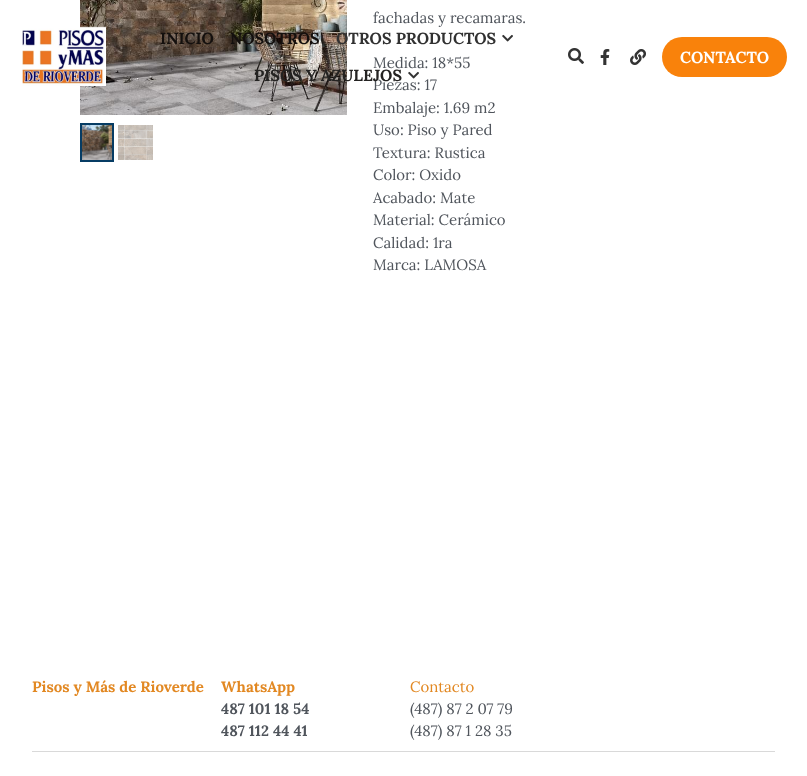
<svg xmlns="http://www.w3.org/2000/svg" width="807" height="776">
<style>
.a{font:15px Lora;fill:#50555c}
.b{font:bold 15px Lora;fill:#e28822}
.c{font:bold 15px Lora;fill:#50555c}
.d{font:15px Lora;fill:#e28822}
.e{font:bold 16px Lora;fill:#14100e}
.f{font:bold 16px Lora;fill:#313131}
.g{font:bold 16px Lora;fill:#242322}
.h{font:bold 16px Lora;fill:#fff}
</style>
<rect width="100%" height="100%" fill="#fff"/>
<image href="1.png" x="80" y="0" width="267" height="115"/>
<path fill="none" stroke="#063c64" stroke-width="2" d="M81 124h32v37H81z"/>
<image href="2.png" x="82" y="125" width="30" height="35"/>
<image href="3.png" x="118" y="125" width="35" height="35"/>
<path fill="#d9d9d9" d="M32 751h743v1H32z"/>
<image href="4.png" x="22" y="26" width="84" height="60"/>
<image href="5.png" x="502" y="34" width="11" height="8"/>
<image href="5.png" x="408" y="71" width="11" height="8"/>
<image href="6.png" x="568" y="48" width="16" height="16"/>
<image href="7.png" x="600" y="49" width="10" height="16"/>
<image href="8.png" x="630" y="49" width="16" height="16"/>
<rect fill="#f9820b" x="662" y="37" width="125" height="40" rx="20"/>
<text class="a" x="373" y="23">fachadas y recamaras.</text>
<text class="a" x="373" y="68">Medida: 18*55</text>
<text class="a" x="373" y="90">Piezas: 17</text>
<text class="a" x="373" y="113">Embalaje: 1.69 m2</text>
<text class="a" x="373" y="135">Uso: Piso y Pared</text>
<text class="a" x="373" y="158">Textura: Rustica</text>
<text class="a" x="373" y="180">Color: Oxido</text>
<text class="a" x="373" y="203">Acabado: Mate</text>
<text class="a" x="373" y="225">Material: Cerámico</text>
<text class="a" x="373" y="248">Calidad: 1ra</text>
<text class="a" x="373" y="270">Marca: LAMOSA</text>
<text class="b" x="32" y="692">Pisos y Más de Rioverde</text>
<text class="b" x="221" y="692">WhatsApp</text>
<text class="c" x="221" y="714">487 101 18 54</text>
<text class="c" x="221" y="736">487 112 44 41</text>
<text class="d" x="410" y="692">Contacto</text>
<text class="a" x="410" y="714">(487) 87 2 07 79</text>
<text class="a" x="410" y="736">(487) 87 1 28 35</text>
<text class="e" x="160" y="44">INICIO</text>
<text class="e" x="230" y="44">NOSOTROS</text>
<text class="f" x="336" y="44">OTROS PRODUCTOS</text>
<text class="g" x="254" y="81">PISOS Y AZULEJOS</text>
<text class="h" x="680" y="63">CONTACTO</text>
</svg>
